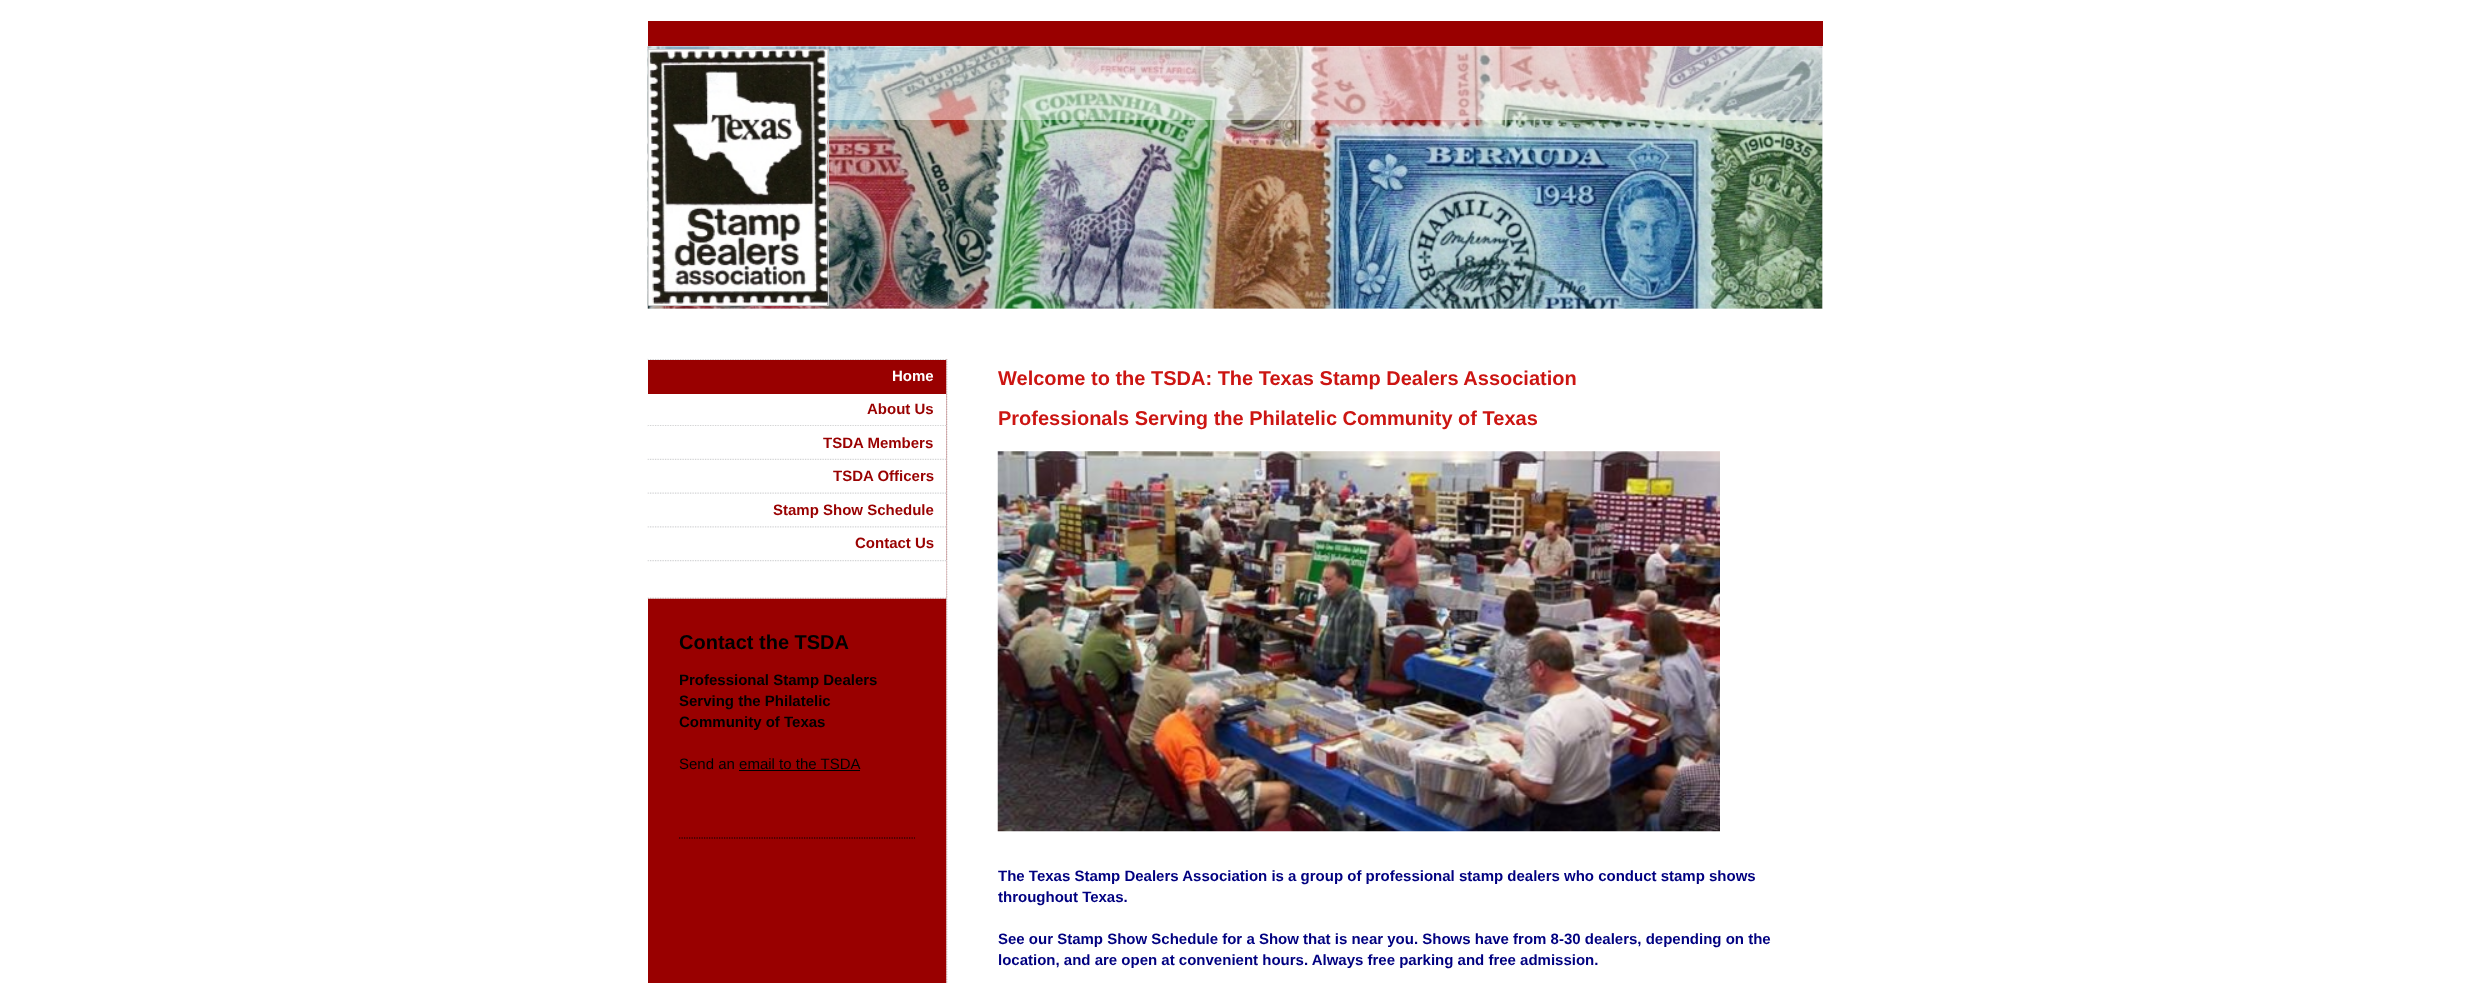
<svg xmlns="http://www.w3.org/2000/svg" width="2470" height="983">
<style>
.a{font:bold 15px Liberation Sans;fill:#fff}
.b{font:bold 15px Liberation Sans;fill:#900}
.c{font:bold 20px Liberation Sans;fill:#000}
.d{font:bold 15px Liberation Sans;fill:#000}
.e{font:15px Liberation Sans;fill:#000}
.f{font:bold 20px Liberation Sans;fill:#cc1512}
.g{font:bold 15px Liberation Sans;fill:#000080}
</style>
<defs>
<clipPath id="clip1"><path d="M998 446h775v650H998z"/></clipPath>
</defs>
<rect width="100%" height="100%" fill="#fff"/>
<path fill="#900" d="M648 359h299v624H648z"/>
<image href="1.png" x="946" y="359" width="2" height="624"/>
<image href="5.png" x="647" y="358" width="300" height="2"/>
<path fill="#fff" d="M648 358h298v1H648z"/>
<path fill="#900" d="M648 21h1175v25H648z"/>
<path fill="#eee" d="M648 46h1175v263H648z"/>
<image href="2.png" x="647" y="46" width="1176" height="263"/>
<path fill="#ffffff80" d="M648 46h1175v74H648z"/>
<path fill="none" stroke="#ccc" d="M648.5 49.5h180v256H648.5z"/>
<image href="3.png" x="648" y="50" width="180" height="255"/>
<image href="4.png" x="647" y="560" width="300" height="39"/>
<path fill="#fff" d="M648 394h298v31H648z"/>
<image href="6.png" x="647" y="425" width="300" height="2"/>
<path fill="#fff" d="M648 426h298v33H648z"/>
<image href="7.png" x="647" y="458" width="300" height="2"/>
<path fill="#fff" d="M648 460h298v100H648z"/>
<image href="8.png" x="647" y="492" width="300" height="2"/>
<image href="9.png" x="647" y="526" width="300" height="2"/>
<image href="10.png" x="647" y="560" width="300" height="2"/>
<path fill="#000" d="M739 770h121v1H739z"/>
<path fill="none" stroke="#000" stroke-width="1.2" stroke-dasharray="1.25 1.25" d="M679 838h236"/>
<image href="11.png" x="997" y="451" width="723" height="381"/>
<text class="a" x="892" y="381">Home</text>
<text class="b" x="867" y="414">About Us</text>
<text class="b" x="823" y="448">TSDA Members</text>
<text class="b" x="833" y="481">TSDA Officers</text>
<text class="b" x="773" y="515">Stamp Show Schedule</text>
<text class="b" x="855" y="548">Contact Us</text>
<text class="c" x="679" y="649">Contact the TSDA</text>
<text class="d" x="679" y="685">Professional Stamp Dealers</text>
<text class="d" x="679" y="706">Serving the Philatelic</text>
<text class="d" x="679" y="727">Community of Texas</text>
<text class="e" x="679" y="769">Send an email to the TSDA</text>
<text class="f" x="998" y="385">Welcome to the TSDA: The Texas Stamp Dealers Association</text>
<text class="f" x="998" y="425">Professionals Serving the Philatelic Community of Texas</text>
<g clip-path="url(#clip1)">
<text class="g" x="998" y="881">The Texas Stamp Dealers Association is a group of professional stamp dealers who conduct stamp shows</text>
</g>
<text class="g" x="998" y="902">throughout Texas.</text>
<text class="g" x="998" y="944">See our Stamp Show Schedule for a Show that is near you. Shows have from 8-30 dealers, depending on the</text>
<text class="g" x="998" y="965">location, and are open at convenient hours. Always free parking and free admission.</text>
</svg>
